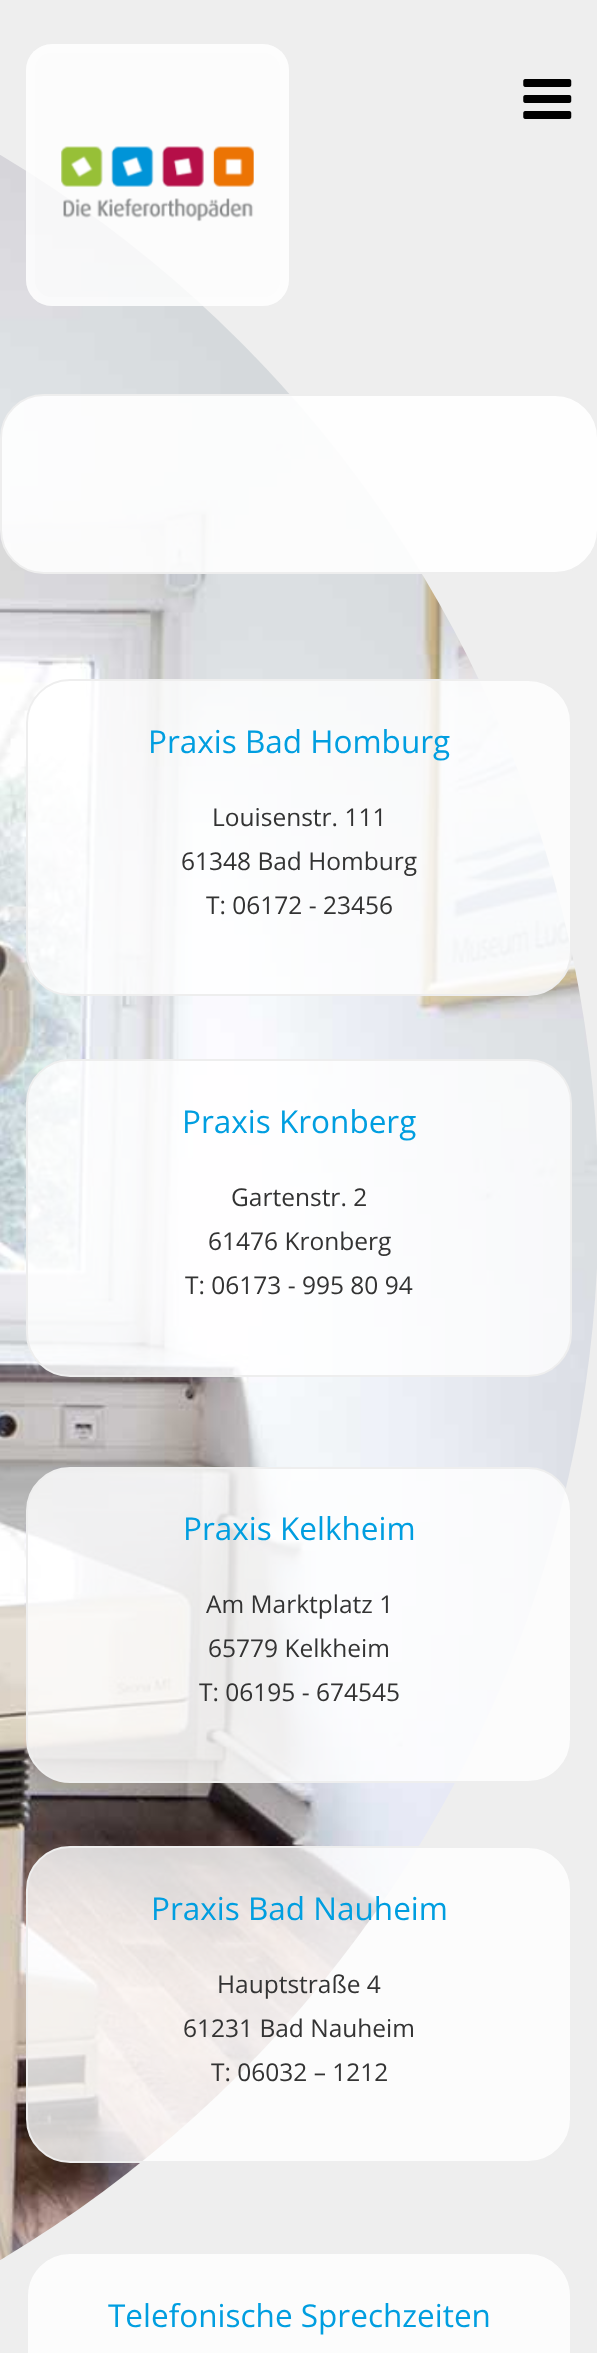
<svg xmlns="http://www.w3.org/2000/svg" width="597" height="2353">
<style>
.a{font:31.5px Open Sans;fill:#009ee0}
.b{font:24.5px Open Sans;fill:#333}
</style>
<rect width="100%" height="100%" fill="#eee"/>
<image href="3.png" x="0" y="155" width="597" height="2105"/>
<rect fill="#ffffffcc" x="26" y="44" width="263" height="262" rx="26"/>
<rect fill="none" stroke="#ffffff4d" stroke-width="9" x="30.5" y="48.5" width="254" height="253" rx="21.5"/>
<image href="1.png" x="61" y="146" width="193" height="76"/>
<image href="2.png" x="523" y="79" width="49" height="40"/>
<rect fill="#ffffffe6" stroke="#eee" stroke-width="2" x="1" y="395" width="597" height="178" rx="43"/>
<rect fill="#ffffffcc" stroke="#eee" stroke-width="2" x="27" y="680" width="544" height="315" rx="43"/>
<rect fill="#ffffffcc" stroke="#eee" stroke-width="2" x="27" y="1060" width="544" height="316" rx="43"/>
<rect fill="#ffffffcc" stroke="#eee" stroke-width="2" x="27" y="1468" width="544" height="314" rx="43"/>
<rect fill="#ffffffcc" stroke="#eee" stroke-width="2" x="27" y="1847" width="544" height="315" rx="43"/>
<rect fill="#fcfcfc" stroke="#eee" stroke-width="2" x="27" y="2253" width="544" height="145" rx="43"/>
<text class="a" x="148" y="753">Praxis Bad Homburg</text>
<text class="b" x="212" y="826">Louisenstr. 111</text>
<text class="b" x="181" y="870">61348 Bad Homburg</text>
<text class="b" x="206" y="914">T: 06172 - 23456</text>
<text class="a" x="182" y="1133">Praxis Kronberg</text>
<text class="b" x="231" y="1206">Gartenstr. 2</text>
<text class="b" x="208" y="1250">61476 Kronberg</text>
<text class="b" x="185" y="1294">T: 06173 - 995 80 94</text>
<text class="a" x="183" y="1540">Praxis Kelkheim</text>
<text class="b" x="206" y="1613">Am Marktplatz 1</text>
<text class="b" x="208" y="1657">65779 Kelkheim</text>
<text class="b" x="199" y="1701">T: 06195 - 674545</text>
<text class="a" x="151" y="1920">Praxis Bad Nauheim</text>
<text class="b" x="217" y="1993">Hauptstraße 4</text>
<text class="b" x="183" y="2037">61231 Bad Nauheim</text>
<text class="b" x="211" y="2081">T: 06032 – 1212</text>
<text class="a" x="108" y="2327">Telefonische Sprechzeiten</text>
</svg>
